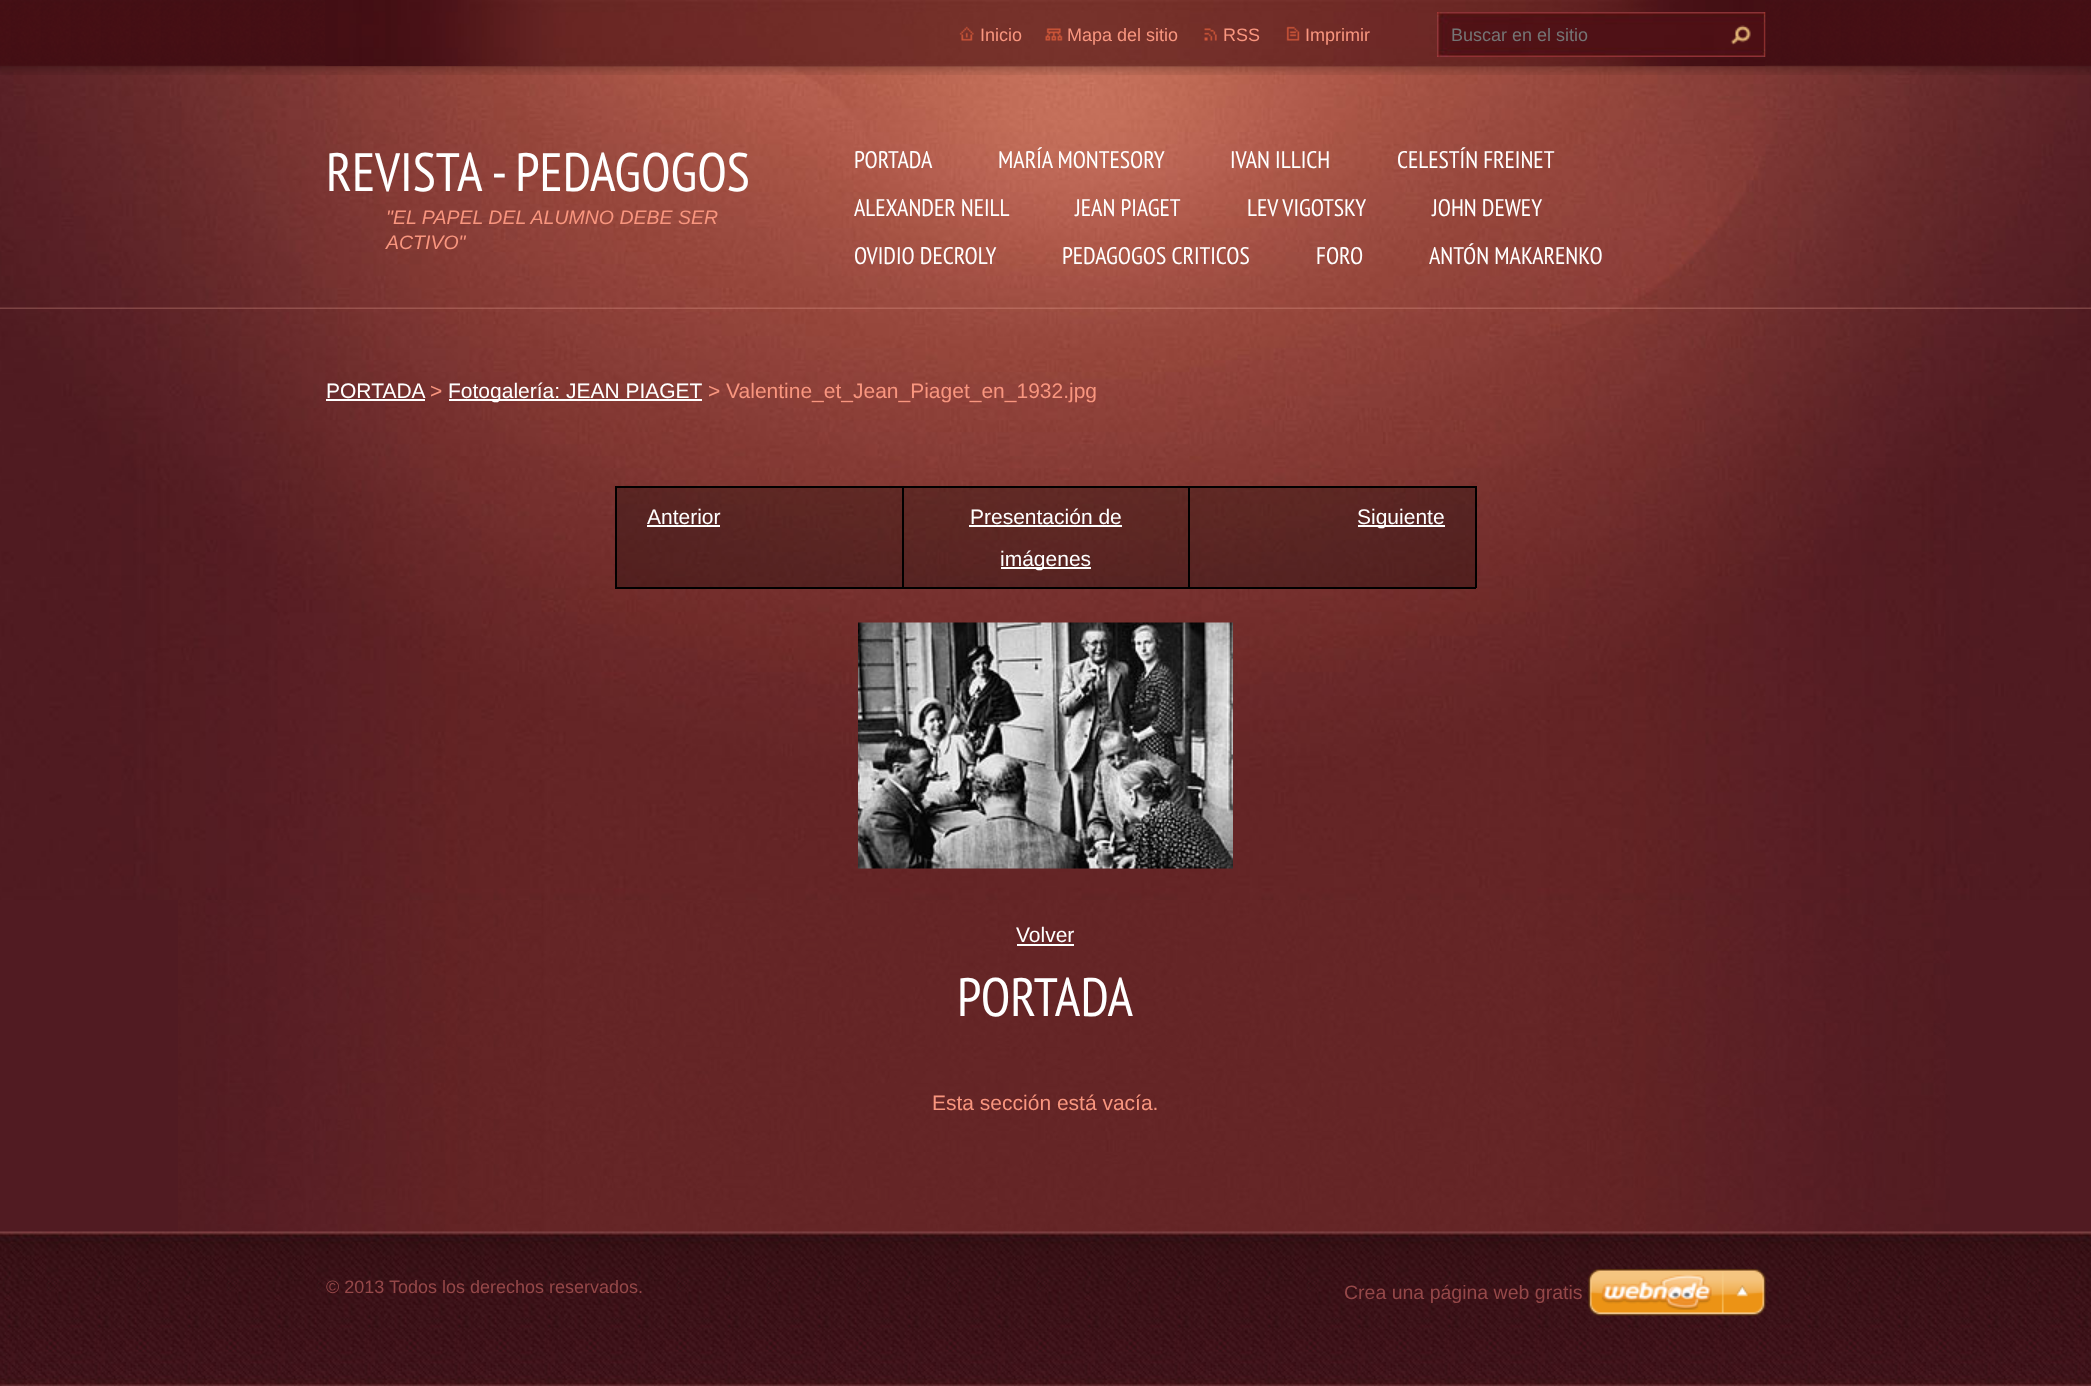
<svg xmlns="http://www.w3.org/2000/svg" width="2091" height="1386">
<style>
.a{font:18px Liberation Sans;fill:#f9967f}
.b{font:18px Liberation Sans;fill:#757575}
.c{font:54px PT Sans Narrow;fill:#fff}
.d{font:italic 19.5px Liberation Sans;fill:#f9967f}
.e{font:24px PT Sans Narrow;fill:#fff}
.f{font:21px Liberation Sans;fill:#fff}
.g{font:21px Liberation Sans;fill:#f9967f}
.h{font:18px Liberation Sans;fill:#954849}
.i{font:19.5px Liberation Sans;fill:#954849}
</style>
<defs>
<clipPath id="clip1"><path d="M326 1232h720v154H326z"/></clipPath>
</defs>
<rect width="100%" height="100%" fill="#511b22"/>
<image href="1.png" x="178" y="900" width="1772" height="332"/>
<image href="2.png" x="0" y="65" width="2091" height="835"/>
<image href="3.png" x="0" y="307" width="2091" height="2"/>
<image href="4.png" x="0" y="0" width="2091" height="75"/>
<image href="5.png" x="325" y="0" width="1440" height="66"/>
<image href="6.png" x="959" y="26" width="15" height="15"/>
<image href="7.png" x="1045" y="28" width="18" height="13"/>
<image href="8.png" x="1204" y="28" width="13" height="13"/>
<image href="9.png" x="1286" y="26" width="14" height="15"/>
<image href="10.png" x="1437" y="12" width="329" height="45"/>
<image href="11.png" x="1730" y="25" width="21" height="20"/>
<path fill="#fff" d="M326 399h99v2H326z"/>
<path fill="#fff" d="M449 399h253v2H449z"/>
<path fill="#000" d="M615 486h861v2H615z"/>
<path fill="#000" d="M615 486h2v102H615z"/>
<path fill="#00000045" d="M617 488h285v99H617z"/>
<path fill="#000" d="M1475 486h2v102H1475z"/>
<path fill="#000" d="M1188 587h288v2H1188z"/>
<path fill="#000" d="M1188 486h2v102H1188z"/>
<path fill="#000" d="M902 587h288v2H902z"/>
<path fill="#000" d="M902 486h2v102H902z"/>
<path fill="#000" d="M615 587h288v2H615z"/>
<path fill="#fff" d="M647 525h73v2H647z"/>
<path fill="#00000045" d="M904 488h284v99H904z"/>
<path fill="#fff" d="M969 525h153v2H969z"/>
<path fill="#fff" d="M1001 567h90v2H1001z"/>
<path fill="#00000045" d="M1190 488h285v99H1190z"/>
<path fill="#fff" d="M1358 525h87v2H1358z"/>
<image href="12.png" x="858" y="622" width="375" height="247"/>
<path fill="#fff" d="M1017 944h57v2H1017z"/>
<image href="13.png" x="0" y="1231" width="2091" height="155"/>
<image href="14.png" x="1588" y="1269" width="178" height="47"/>
<text class="a" x="980" y="41">Inicio</text>
<text class="a" x="1067" y="41">Mapa del sitio</text>
<text class="a" x="1223" y="41">RSS</text>
<text class="a" x="1305" y="41">Imprimir</text>
<text class="b" x="1451" y="41">Buscar en el sitio</text>
<text class="c" x="326" y="191">REVISTA - PEDAGOGOS</text>
<text class="d" x="386" y="224">"EL PAPEL DEL ALUMNO DEBE SER</text>
<text class="d" x="386" y="249">ACTIVO"</text>
<text class="e" x="854" y="168">PORTADA</text>
<text class="e" x="998" y="168">MARÍA MONTESORY</text>
<text class="e" x="1230" y="168">IVAN ILLICH</text>
<text class="e" x="1397" y="168">CELESTÍN FREINET</text>
<text class="e" x="854" y="216">ALEXANDER NEILL</text>
<text class="e" x="1075" y="216">JEAN PIAGET</text>
<text class="e" x="1247" y="216">LEV VIGOTSKY</text>
<text class="e" x="1432" y="216">JOHN DEWEY</text>
<text class="e" x="854" y="264">OVIDIO DECROLY</text>
<text class="e" x="1062" y="264">PEDAGOGOS CRITICOS</text>
<text class="e" x="1316" y="264">FORO</text>
<text class="e" x="1429" y="264">ANTÓN MAKARENKO</text>
<text class="f" x="326" y="398">PORTADA</text>
<text class="g" x="430" y="398">&gt;</text>
<text class="f" x="448" y="398">Fotogalería: JEAN PIAGET</text>
<text class="g" x="708" y="398">&gt; Valentine_et_Jean_Piaget_en_1932.jpg</text>
<text class="f" x="647" y="524">Anterior</text>
<text class="f" x="970" y="524">Presentación de</text>
<text class="f" x="1000" y="566">imágenes</text>
<text class="f" x="1357" y="524">Siguiente</text>
<text class="f" x="1016" y="942">Volver</text>
<text class="c" x="957" y="1016">PORTADA</text>
<text class="g" x="932" y="1110">Esta sección está vacía.</text>
<g clip-path="url(#clip1)">
<text class="h" x="326" y="1293">© 2013 Todos los derechos reservados.</text>
</g>
<text class="i" x="1344" y="1299">Crea una página web gratis</text>
</svg>
